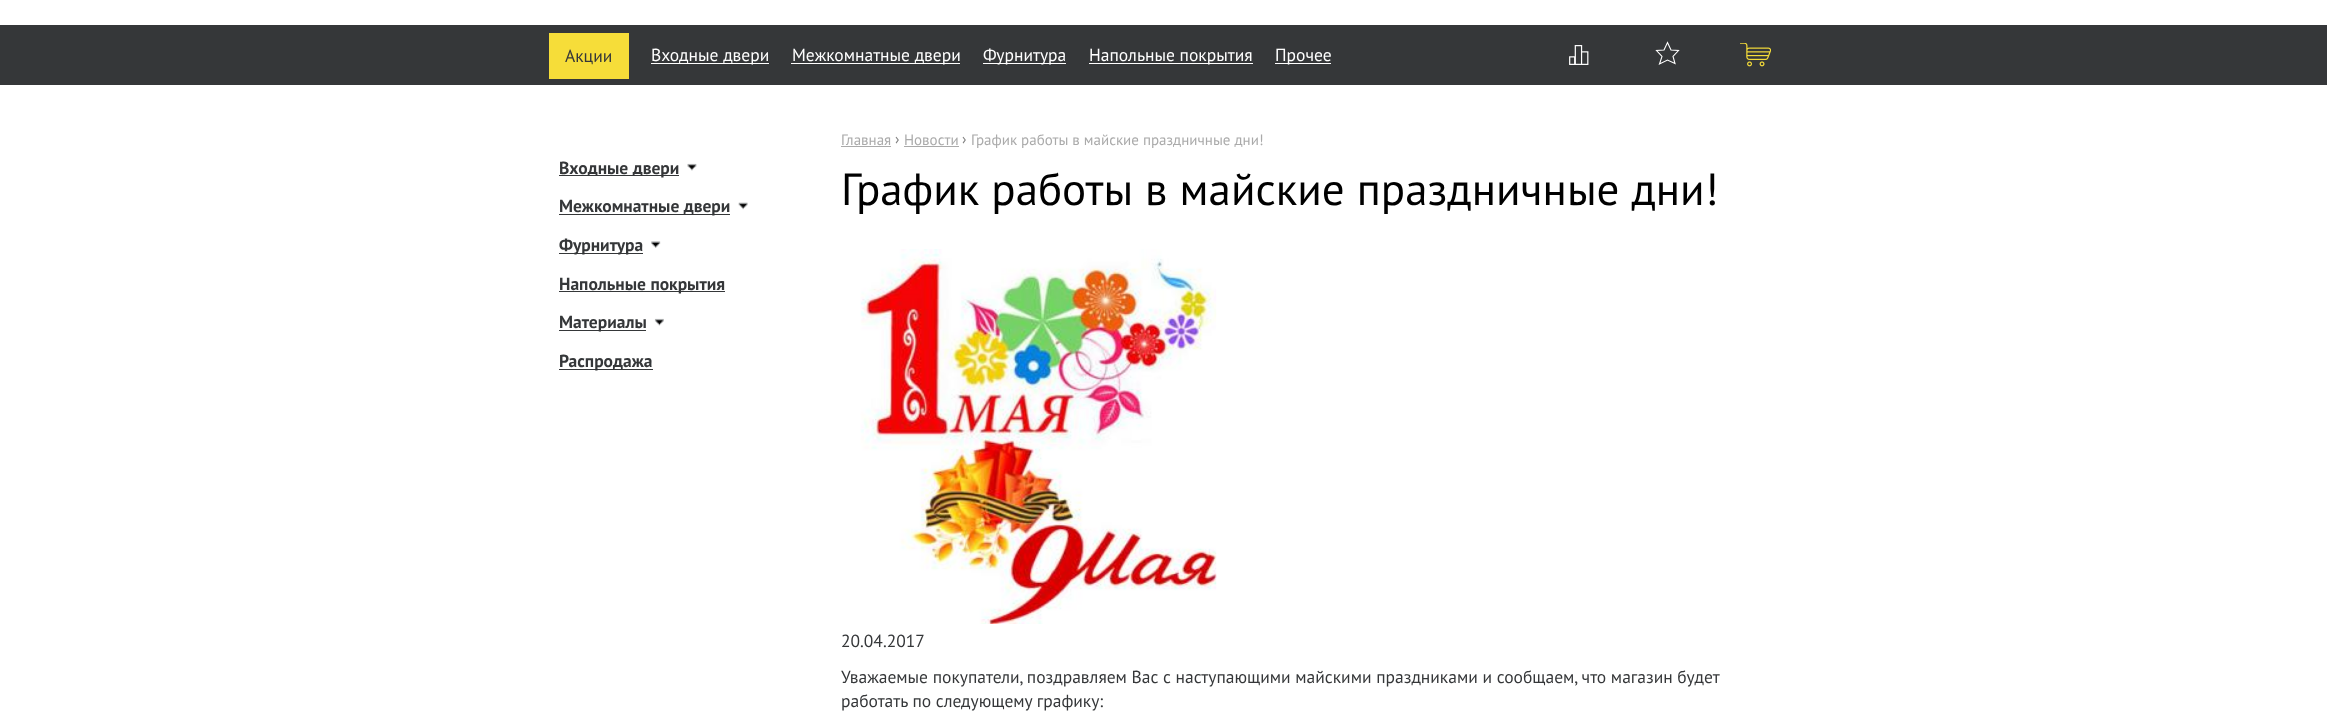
<svg xmlns="http://www.w3.org/2000/svg" width="2327" height="721">
<style>
.a{font:17.5px PT Sans;fill:#353739}
.b{font:17.5px PT Sans;fill:#fff}
.c{font:bold 17.5px PT Sans;fill:#353739}
.d{font:15px PT Sans;fill:#aaa}
.e{font:15px PT Sans;fill:#808080}
.f{font:45px PT Sans;fill:#000}
</style>
<rect width="100%" height="100%" fill="#fff"/>
<path fill="#353739" d="M0 25h2327v60H0z"/>
<path fill="#f6dd39" d="M549 33h80v46H549z"/>
<path fill="#fff" d="M651 63h118v1H651z"/>
<path fill="#fff" d="M791 63h169v1H791z"/>
<path fill="#fff" d="M983 63h83v1H983z"/>
<path fill="#fff" d="M1089 63h164v1H1089z"/>
<path fill="#fff" d="M1275 63h56v1H1275z"/>
<image href="1.png" x="1569" y="45" width="20" height="20"/>
<path fill="none" stroke="#fff" stroke-width="1.1" d="M1675 63.5l-7.5-3.5l-8 4l2.5-7.5l-5.5-6l7.5-.5l3.5-7.5l3.5 7.5l7.5 .5l-5.5 6z"/>
<image href="2.png" x="1740" y="43" width="31" height="24"/>
<path fill="#353739" d="M559 175h120v1H559z"/>
<image href="3.png" x="687" y="163" width="10" height="8"/>
<path fill="#353739" d="M559 214h171v1H559z"/>
<image href="4.png" x="738" y="202" width="10" height="8"/>
<path fill="#353739" d="M559 253h84v1H559z"/>
<image href="5.png" x="651" y="241" width="10" height="7"/>
<path fill="#353739" d="M559 291h166v1H559z"/>
<path fill="#353739" d="M559 330h87v1H559z"/>
<image href="6.png" x="654" y="318" width="10" height="8"/>
<path fill="#353739" d="M559 369h94v1H559z"/>
<path fill="#aaa" d="M841 146h50v1H841z"/>
<path fill="#aaa" d="M904 146h55v1H904z"/>
<image href="7.png" x="860" y="249" width="357" height="375"/>
<text class="a" x="565" y="62">Акции</text>
<text class="b" x="651" y="61">Входные двери</text>
<text class="b" x="792" y="61">Межкомнатные двери</text>
<text class="b" x="983" y="61">Фурнитура</text>
<text class="b" x="1089" y="61">Напольные покрытия</text>
<text class="b" x="1275" y="61">Прочее</text>
<text class="c" x="559" y="174">Входные двери</text>
<text class="c" x="559" y="212">Межкомнатные двери</text>
<text class="c" x="559" y="251">Фурнитура</text>
<text class="c" x="559" y="290">Напольные покрытия</text>
<text class="c" x="559" y="328">Материалы</text>
<text class="c" x="559" y="367">Распродажа</text>
<text class="d" x="841" y="145">Главная</text>
<text class="e" x="895" y="144">›</text>
<text class="d" x="904" y="145">Новоcти</text>
<text class="e" x="962" y="144">›</text>
<text class="d" x="971" y="145">График работы в майские праздничные дни!</text>
<text class="f" x="841" y="205">График работы в майские праздничные дни!</text>
<text class="a" x="841" y="647">20.04.2017</text>
<text class="a" x="841" y="683">Уважаемые покупатели, поздравляем Вас с наступающими майскими праздниками и сообщаем, что магазин будет</text>
<text class="a" x="841" y="707">работать по следующему графику:</text>
</svg>
